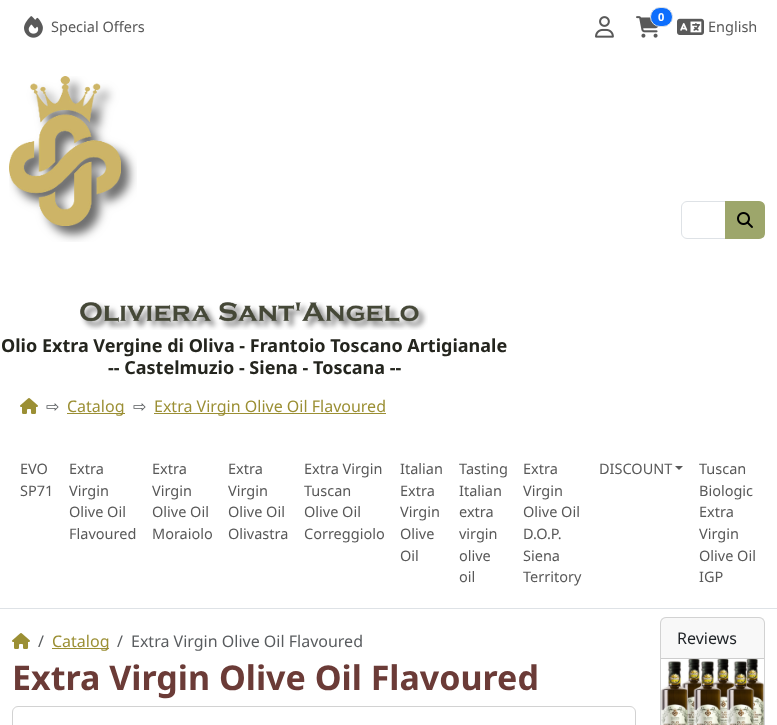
<svg xmlns="http://www.w3.org/2000/svg" width="777" height="725">
<style>
.a{font:14.5px Noto Sans;fill:#595959}
.b{font:bold 11px Noto Sans;fill:#fff}
.c{font:bold 18px Noto Sans;fill:#24251e}
.d{font:16px DejaVu Sans;fill:#595c5f}
.e{font:16px Noto Sans;fill:#9b8f34}
.f{font:16px Noto Sans;fill:#595c5f}
.g{font:bold 34px Noto Sans;fill:#6b3b37}
.h{font:16px Noto Sans;fill:#212529}
</style>
<rect width="100%" height="100%" fill="#fff"/>
<image href="1.png" x="24" y="16" width="19" height="22"/>
<image href="2.png" x="595" y="16" width="19" height="22"/>
<image href="3.png" x="636" y="16" width="23" height="22"/>
<rect fill="#0d6efd" stroke="#dee2e6" x="650.5" y="7.5" width="22" height="19" rx="9.5"/>
<image href="4.png" x="677" y="18" width="27" height="17"/>
<path fill="#dee2e6" d="M0 608h777v1H0z"/>
<path fill="none" stroke="#dee2e6" d="M687 201.5h38.5v37h-38.5c-3 0-5.5-2.5-5.5-5.5v-26c0-3 2.5-5.5 5.5-5.5z"/>
<path fill="#9da66b" d="M725 201h34c3.5 0 6 2.5 6 6v26c0 3.5-2.5 6-6 6h-34z"/>
<image href="5.png" x="737" y="212" width="16" height="16"/>
<image href="6.png" x="9" y="76" width="128" height="166"/>
<image href="7.png" x="80" y="302" width="348" height="28"/>
<image href="8.png" x="20" y="398" width="18" height="16"/>
<path fill="#9b8f34" d="M67 413h58v1H67z"/>
<path fill="#9b8f34" d="M154 413h232v1H154z"/>
<path fill="#595959" d="M675 466h8l-4 4z"/>
<image href="8.png" x="12" y="633" width="18" height="16"/>
<path fill="#9b8f34" d="M52 648h57v1H52z"/>
<rect fill="none" stroke="#d2d2d2" x="12.5" y="706.5" width="623" height="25" rx="5.5"/>
<rect fill="none" stroke="#d2d2d2" x="660.5" y="617.5" width="104" height="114" rx="5.5"/>
<path fill="#21252908" d="M661 618h103v40H661z"/>
<path fill="#cdcdcd" d="M661 658h103v1H661z"/>
<image href="9.png" x="661" y="659" width="103" height="66"/>
<text class="a" x="51" y="32">Special Offers</text>
<text class="b" x="658" y="21">0</text>
<text class="a" x="708" y="32">English</text>
<text class="c" x="1" y="352">Olio Extra Vergine di Oliva - Frantoio Toscano Artigianale</text>
<text class="c" x="108" y="374">-- Castelmuzio - Siena - Toscana --</text>
<text class="d" x="46" y="412">⇨</text>
<text class="e" x="67" y="412">Catalog</text>
<text class="d" x="133" y="412">⇨</text>
<text class="e" x="154" y="412">Extra Virgin Olive Oil Flavoured</text>
<text class="a" x="20" y="474">EVO</text>
<text class="a" x="20" y="496">SP71</text>
<text class="a" x="69" y="474">Extra</text>
<text class="a" x="69" y="496">Virgin</text>
<text class="a" x="69" y="517">Olive Oil</text>
<text class="a" x="69" y="539">Flavoured</text>
<text class="a" x="152" y="474">Extra</text>
<text class="a" x="152" y="496">Virgin</text>
<text class="a" x="152" y="517">Olive Oil</text>
<text class="a" x="152" y="539">Moraiolo</text>
<text class="a" x="228" y="474">Extra</text>
<text class="a" x="228" y="496">Virgin</text>
<text class="a" x="228" y="517">Olive Oil</text>
<text class="a" x="228" y="539">Olivastra</text>
<text class="a" x="304" y="474">Extra Virgin</text>
<text class="a" x="304" y="496">Tuscan</text>
<text class="a" x="304" y="517">Olive Oil</text>
<text class="a" x="304" y="539">Correggiolo</text>
<text class="a" x="400" y="474">Italian</text>
<text class="a" x="400" y="496">Extra</text>
<text class="a" x="400" y="517">Virgin</text>
<text class="a" x="400" y="539">Olive</text>
<text class="a" x="400" y="561">Oil</text>
<text class="a" x="459" y="474">Tasting</text>
<text class="a" x="459" y="496">Italian</text>
<text class="a" x="459" y="517">extra</text>
<text class="a" x="459" y="539">virgin</text>
<text class="a" x="459" y="561">olive</text>
<text class="a" x="459" y="582">oil</text>
<text class="a" x="523" y="474">Extra</text>
<text class="a" x="523" y="496">Virgin</text>
<text class="a" x="523" y="517">Olive Oil</text>
<text class="a" x="523" y="539">D.O.P.</text>
<text class="a" x="523" y="561">Siena</text>
<text class="a" x="523" y="582">Territory</text>
<text class="a" x="599" y="474">DISCOUNT</text>
<text class="a" x="699" y="474">Tuscan</text>
<text class="a" x="699" y="496">Biologic</text>
<text class="a" x="699" y="517">Extra</text>
<text class="a" x="699" y="539">Virgin</text>
<text class="a" x="699" y="561">Olive Oil</text>
<text class="a" x="699" y="582">IGP</text>
<text class="f" x="38" y="647">/</text>
<text class="e" x="52" y="647">Catalog</text>
<text class="f" x="117" y="647">/</text>
<text class="f" x="131" y="647">Extra Virgin Olive Oil Flavoured</text>
<text class="g" x="12" y="690">Extra Virgin Olive Oil Flavoured</text>
<text class="h" x="677" y="644">Reviews</text>
</svg>
